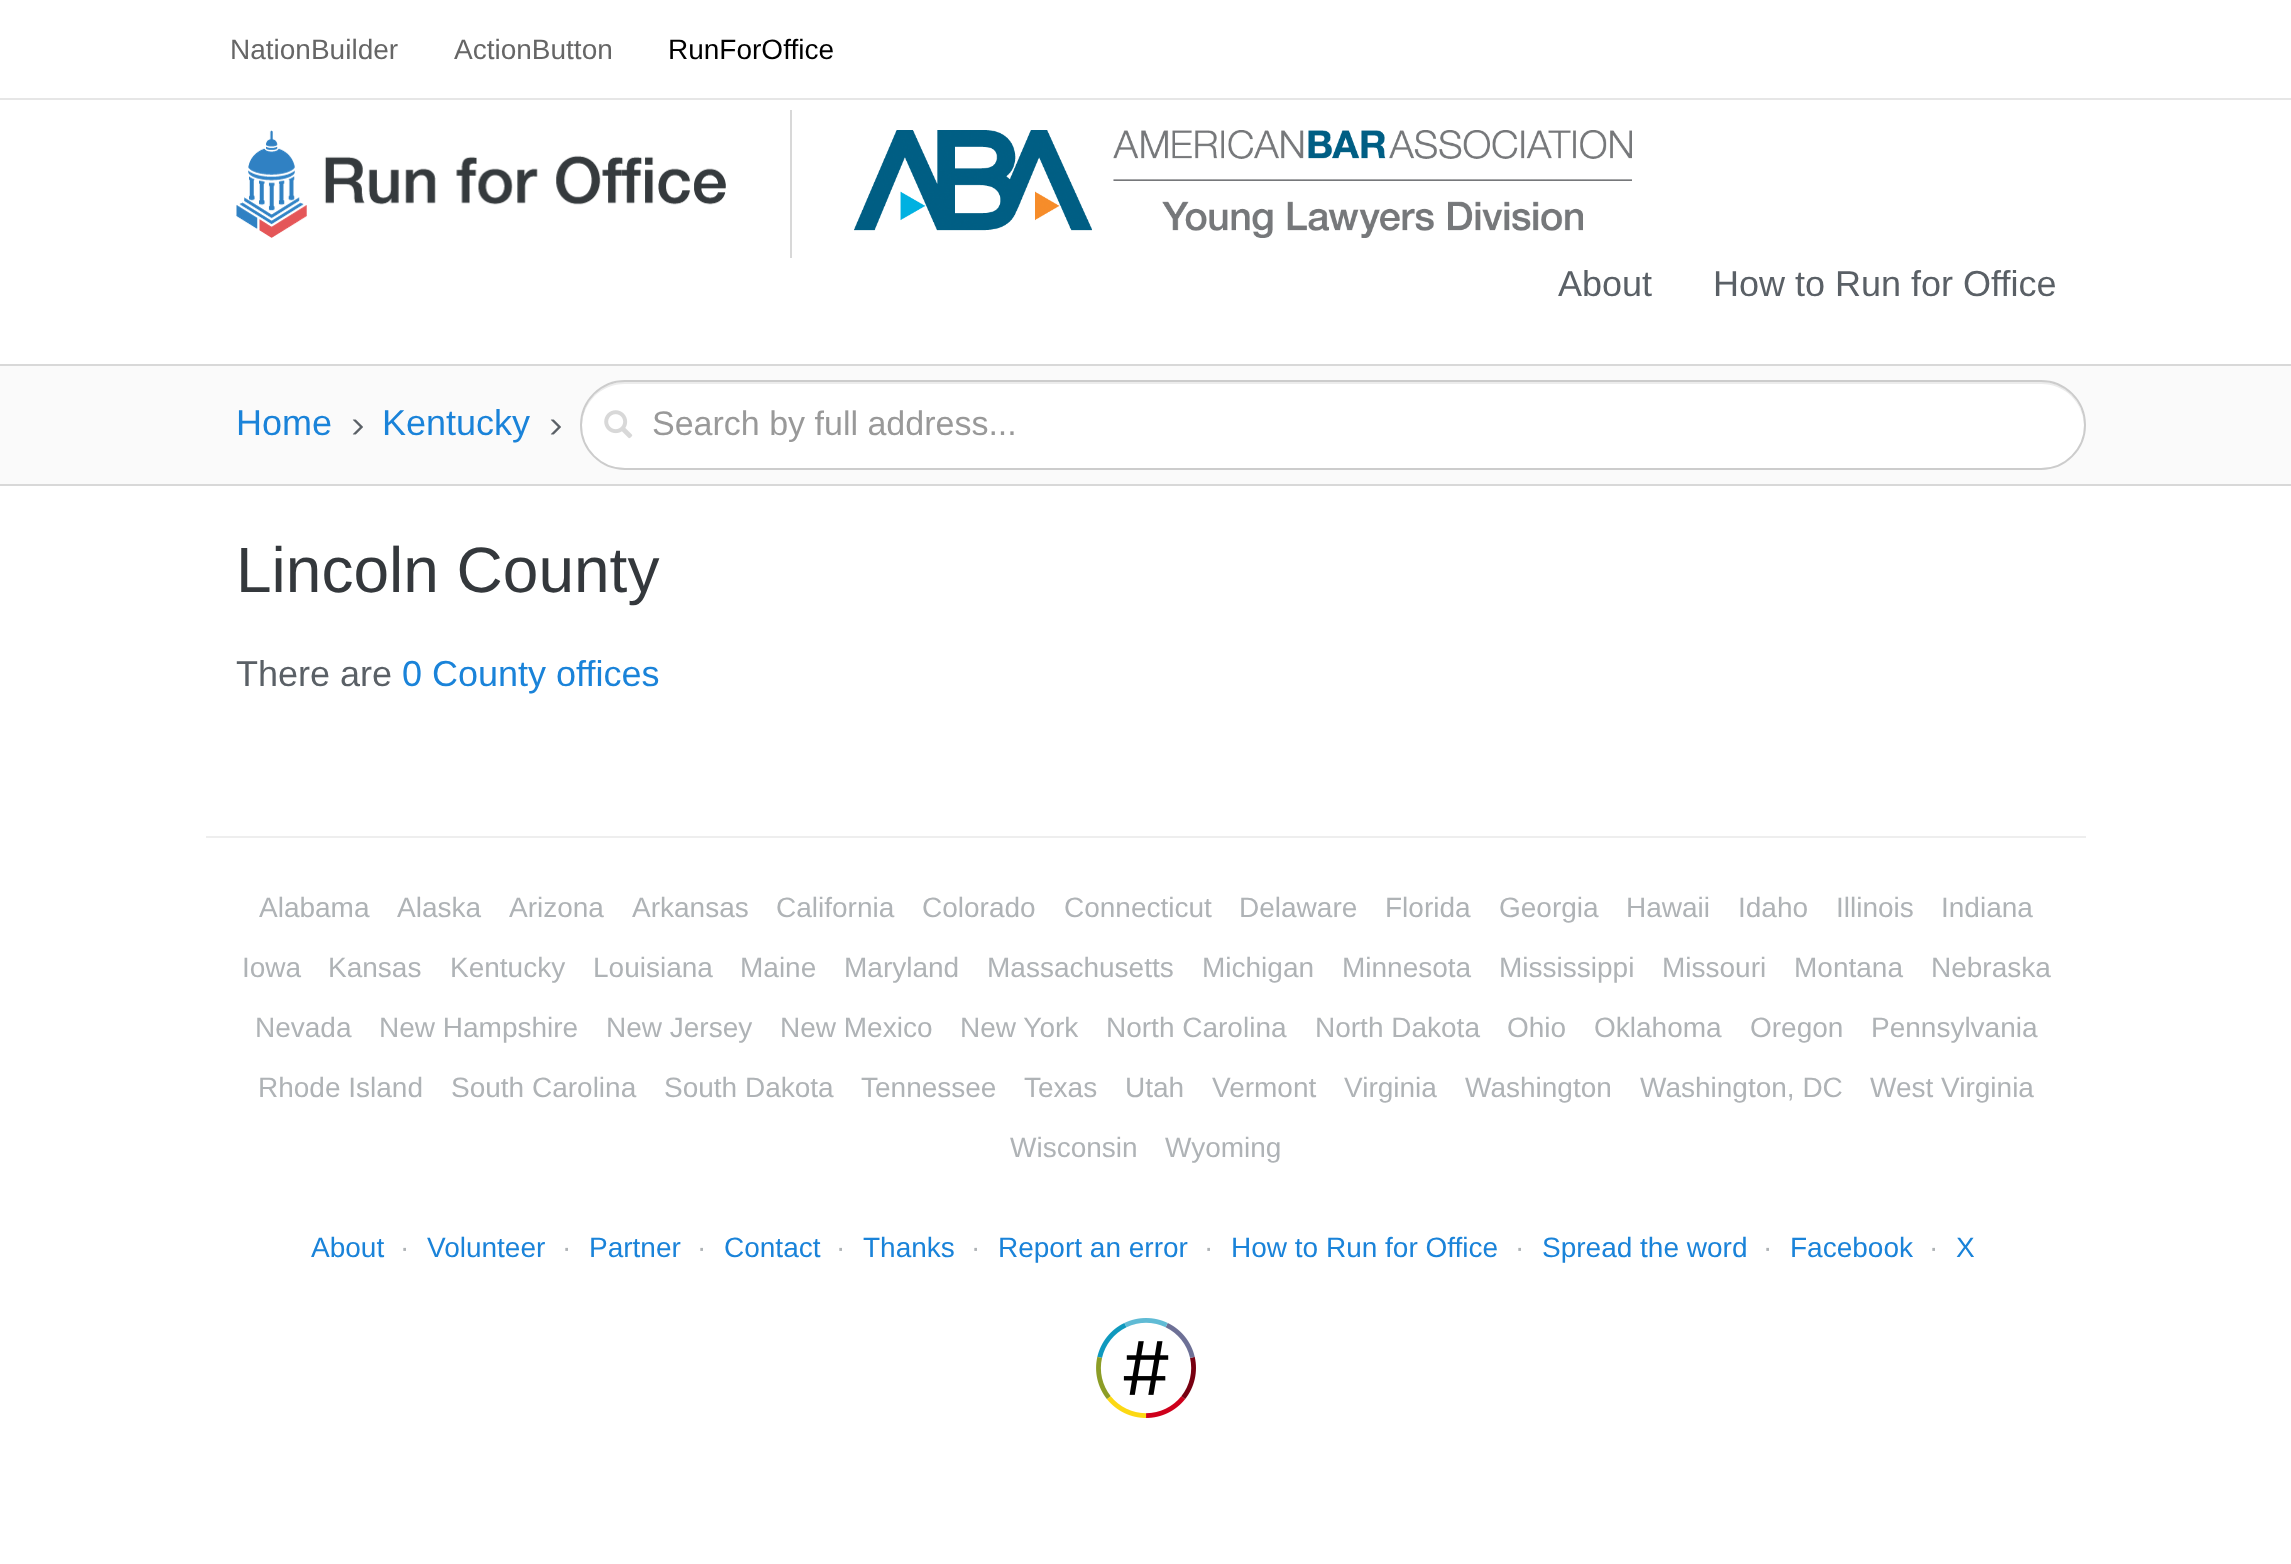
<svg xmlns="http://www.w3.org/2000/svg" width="2291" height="1564">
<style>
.a{font:28px Liberation Sans;fill:#666}
.b{font:28px Liberation Sans;fill:#000}
.c{font:36px Liberation Sans;fill:#5a6066}
.d{font:36px Liberation Sans;fill:#1a83d9}
.e{font:34px Liberation Sans;fill:#999}
.f{font:64px Liberation Sans;fill:#34383c}
.g{font:28px Liberation Sans;fill:#afb3b6}
.h{font:28px Liberation Sans;fill:#1a83d9}
</style>
<rect width="100%" height="100%" fill="#fff"/>
<path fill="#e6e6e6" d="M0 98h2291v2H0z"/>
<image href="1.png" x="236" y="130" width="490" height="108"/>
<path fill="#d8d8d8" d="M790 110h2v148H790z"/>
<image href="2.png" x="854" y="130" width="778" height="108"/>
<path fill="#fafafa" d="M0 366h2291v118H0z"/>
<path fill="#d8d8d8" d="M0 364h2291v2H0z"/>
<path fill="#d8d8d8" d="M0 484h2291v2H0z"/>
<image href="3.png" x="352" y="419" width="11" height="16"/>
<image href="3.png" x="550" y="419" width="11" height="16"/>
<rect fill="#fff" x="580" y="380" width="1506" height="90" rx="45"/>
<path fill="#ececec" d="M625 384h1416c24 0 42 18 43 42c0-17-10-34-26-41c-6-2-11-3-17-3h-1416c-24 0-44 20-43 44c1-24 19-42 43-42z"/>
<rect fill="none" stroke="#ccc" stroke-width="2" x="581" y="381" width="1504" height="88" rx="44"/>
<image href="4.png" x="604" y="410" width="29" height="29"/>
<path fill="#eee" d="M206 836h1880v2H206z"/>
<image href="5.png" x="1096" y="1318" width="100" height="100"/>
<text class="a" x="230" y="59">NationBuilder</text>
<text class="a" x="454" y="59">ActionButton</text>
<text class="b" x="668" y="59">RunForOffice</text>
<text class="c" x="1558" y="296">About</text>
<text class="c" x="1713" y="296">How to Run for Office</text>
<text class="d" x="236" y="435">Home</text>
<text class="d" x="382" y="435">Kentucky</text>
<text class="e" x="652" y="435">Search by full address...</text>
<text class="f" x="236" y="592">Lincoln County</text>
<text class="c" x="236" y="686">There are</text>
<text class="d" x="402" y="686">0 County offices</text>
<text class="g" x="259" y="917">Alabama</text>
<text class="g" x="397" y="917">Alaska</text>
<text class="g" x="509" y="917">Arizona</text>
<text class="g" x="632" y="917">Arkansas</text>
<text class="g" x="776" y="917">California</text>
<text class="g" x="922" y="917">Colorado</text>
<text class="g" x="1064" y="917">Connecticut</text>
<text class="g" x="1239" y="917">Delaware</text>
<text class="g" x="1385" y="917">Florida</text>
<text class="g" x="1499" y="917">Georgia</text>
<text class="g" x="1626" y="917">Hawaii</text>
<text class="g" x="1738" y="917">Idaho</text>
<text class="g" x="1836" y="917">Illinois</text>
<text class="g" x="1941" y="917">Indiana</text>
<text class="g" x="242" y="977">Iowa</text>
<text class="g" x="328" y="977">Kansas</text>
<text class="g" x="450" y="977">Kentucky</text>
<text class="g" x="593" y="977">Louisiana</text>
<text class="g" x="740" y="977">Maine</text>
<text class="g" x="844" y="977">Maryland</text>
<text class="g" x="987" y="977">Massachusetts</text>
<text class="g" x="1202" y="977">Michigan</text>
<text class="g" x="1342" y="977">Minnesota</text>
<text class="g" x="1499" y="977">Mississippi</text>
<text class="g" x="1662" y="977">Missouri</text>
<text class="g" x="1794" y="977">Montana</text>
<text class="g" x="1931" y="977">Nebraska</text>
<text class="g" x="255" y="1037">Nevada</text>
<text class="g" x="379" y="1037">New Hampshire</text>
<text class="g" x="606" y="1037">New Jersey</text>
<text class="g" x="780" y="1037">New Mexico</text>
<text class="g" x="960" y="1037">New York</text>
<text class="g" x="1106" y="1037">North Carolina</text>
<text class="g" x="1315" y="1037">North Dakota</text>
<text class="g" x="1507" y="1037">Ohio</text>
<text class="g" x="1594" y="1037">Oklahoma</text>
<text class="g" x="1750" y="1037">Oregon</text>
<text class="g" x="1871" y="1037">Pennsylvania</text>
<text class="g" x="258" y="1097">Rhode Island</text>
<text class="g" x="451" y="1097">South Carolina</text>
<text class="g" x="664" y="1097">South Dakota</text>
<text class="g" x="861" y="1097">Tennessee</text>
<text class="g" x="1024" y="1097">Texas</text>
<text class="g" x="1125" y="1097">Utah</text>
<text class="g" x="1212" y="1097">Vermont</text>
<text class="g" x="1344" y="1097">Virginia</text>
<text class="g" x="1465" y="1097">Washington</text>
<text class="g" x="1640" y="1097">Washington, DC</text>
<text class="g" x="1870" y="1097">West Virginia</text>
<text class="g" x="1010" y="1157">Wisconsin</text>
<text class="g" x="1165" y="1157">Wyoming</text>
<text class="h" x="311" y="1257">About</text>
<text class="g" x="400" y="1257">·</text>
<text class="h" x="427" y="1257">Volunteer</text>
<text class="g" x="562" y="1257">·</text>
<text class="h" x="589" y="1257">Partner</text>
<text class="g" x="697" y="1257">·</text>
<text class="h" x="724" y="1257">Contact</text>
<text class="g" x="836" y="1257">·</text>
<text class="h" x="863" y="1257">Thanks</text>
<text class="g" x="971" y="1257">·</text>
<text class="h" x="998" y="1257">Report an error</text>
<text class="g" x="1204" y="1257">·</text>
<text class="h" x="1231" y="1257">How to Run for Office</text>
<text class="g" x="1515" y="1257">·</text>
<text class="h" x="1542" y="1257">Spread the word</text>
<text class="g" x="1763" y="1257">·</text>
<text class="h" x="1790" y="1257">Facebook</text>
<text class="g" x="1929" y="1257">·</text>
<text class="h" x="1956" y="1257">X</text>
</svg>
